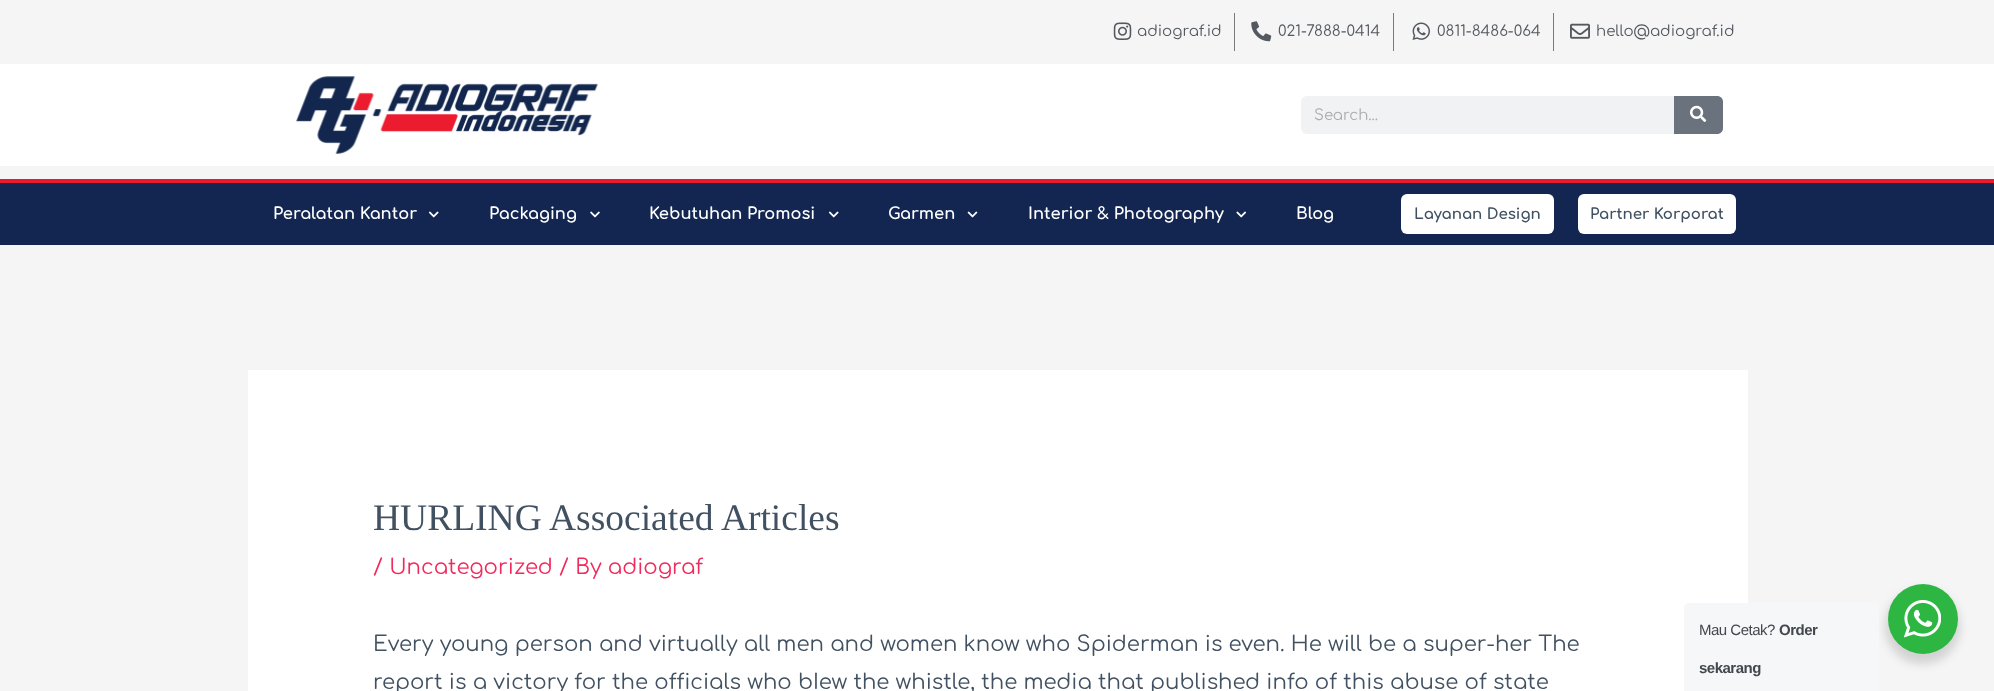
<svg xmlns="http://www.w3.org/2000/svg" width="1994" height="691">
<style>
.a{font:15px Comfortaa;fill:#54595f}
.b{font:15px Comfortaa;fill:#acacad}
.c{font:bold 16.25px Comfortaa;fill:#fff}
.d{font:bold 15px Comfortaa;fill:#415161}
.e{font:37.5px Liberation Serif;fill:#415161}
.f{font:21.25px Comfortaa;fill:#f2295b}
.g{font:21.25px Comfortaa;fill:#415161}
.h{font:15px Liberation Sans;letter-spacing:-0.5px;fill:#43474e}
.i{font:bold 15px Liberation Sans;letter-spacing:-0.5px;fill:#43474e}
</style>
<rect width="100%" height="100%" fill="#f5f5f5"/>
<image href="1.png" x="1113" y="22" width="19" height="18"/>
<path fill="#7a7a7a" d="M1234 13h1v38H1234z"/>
<image href="2.png" x="1251" y="21" width="21" height="21"/>
<path fill="#7a7a7a" d="M1393 13h1v38H1393z"/>
<image href="3.png" x="1412" y="22" width="18" height="18"/>
<path fill="#7a7a7a" d="M1553 13h1v38H1553z"/>
<image href="4.png" x="1570" y="23" width="20" height="16"/>
<path fill="#fff" d="M0 64h1994v102H0z"/>
<image href="5.png" x="296" y="76" width="302" height="78"/>
<rect fill="#f1f2f3" x="1301" y="96" width="422" height="38" rx="6"/>
<path fill="#69727d" d="M1674 96h43c3.5 0 6 2.5 6 6v26c0 3.5-2.5 6-6 6h-43z"/>
<image href="6.png" x="1690" y="105" width="17" height="17"/>
<path fill="#132651" d="M0 183h1994v62H0z"/>
<path fill="#ec1a2f" d="M0 179h1994v4H0z"/>
<image href="7.png" x="428" y="211" width="11" height="7"/>
<image href="8.png" x="590" y="211" width="10" height="7"/>
<image href="7.png" x="828" y="211" width="11" height="7"/>
<image href="9.png" x="967" y="211" width="11" height="7"/>
<image href="10.png" x="1236" y="211" width="10" height="7"/>
<rect fill="#fff" x="1401" y="194" width="153" height="40" rx="6"/>
<rect fill="#fff" x="1578" y="194" width="158" height="40" rx="6"/>
<path fill="#fff" d="M248 370h1500v321H248z"/>
<rect fill="#00000024" filter="blur(5px)" x="1885" y="589" width="75" height="75" rx="37.5"/>
<rect fill="#f5f7f9" x="1684" y="603" width="195" height="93" rx="5"/>
<circle fill="#2db742" cx="1923" cy="619" r="35"/>
<image href="11.png" x="1904" y="600" width="37" height="38"/>
<text class="a" x="1137" y="36">adiograf.id</text>
<text class="a" x="1278" y="36">021-7888-0414</text>
<text class="a" x="1437" y="36">0811-8486-064</text>
<text class="a" x="1596" y="36">hello@adiograf.id</text>
<text class="b" x="1314" y="120">Search...</text>
<text class="c" x="273" y="219">Peralatan Kantor</text>
<text class="c" x="489" y="219">Packaging</text>
<text class="c" x="649" y="219">Kebutuhan Promosi</text>
<text class="c" x="888" y="219">Garmen</text>
<text class="c" x="1028" y="219">Interior &amp; Photography</text>
<text class="c" x="1296" y="219">Blog</text>
<text class="d" x="1414" y="219">Layanan Design</text>
<text class="d" x="1590" y="219">Partner Korporat</text>
<text class="e" x="373" y="530">HURLING Associated Articles</text>
<text class="f" x="373" y="574">/ Uncategorized / By adiograf</text>
<text class="g" x="373" y="651">Every young person and virtually all men and women know who Spiderman is even. He will be a super-her The</text>
<text class="g" x="373" y="689">report is a victory for the officials who bIew the whistle, the media that published info of this abuse of state</text>
<text class="h" x="1699" y="635">Mau Cetak?</text>
<text class="i" x="1779" y="635">Order</text>
<text class="i" x="1699" y="673">sekarang</text>
</svg>
